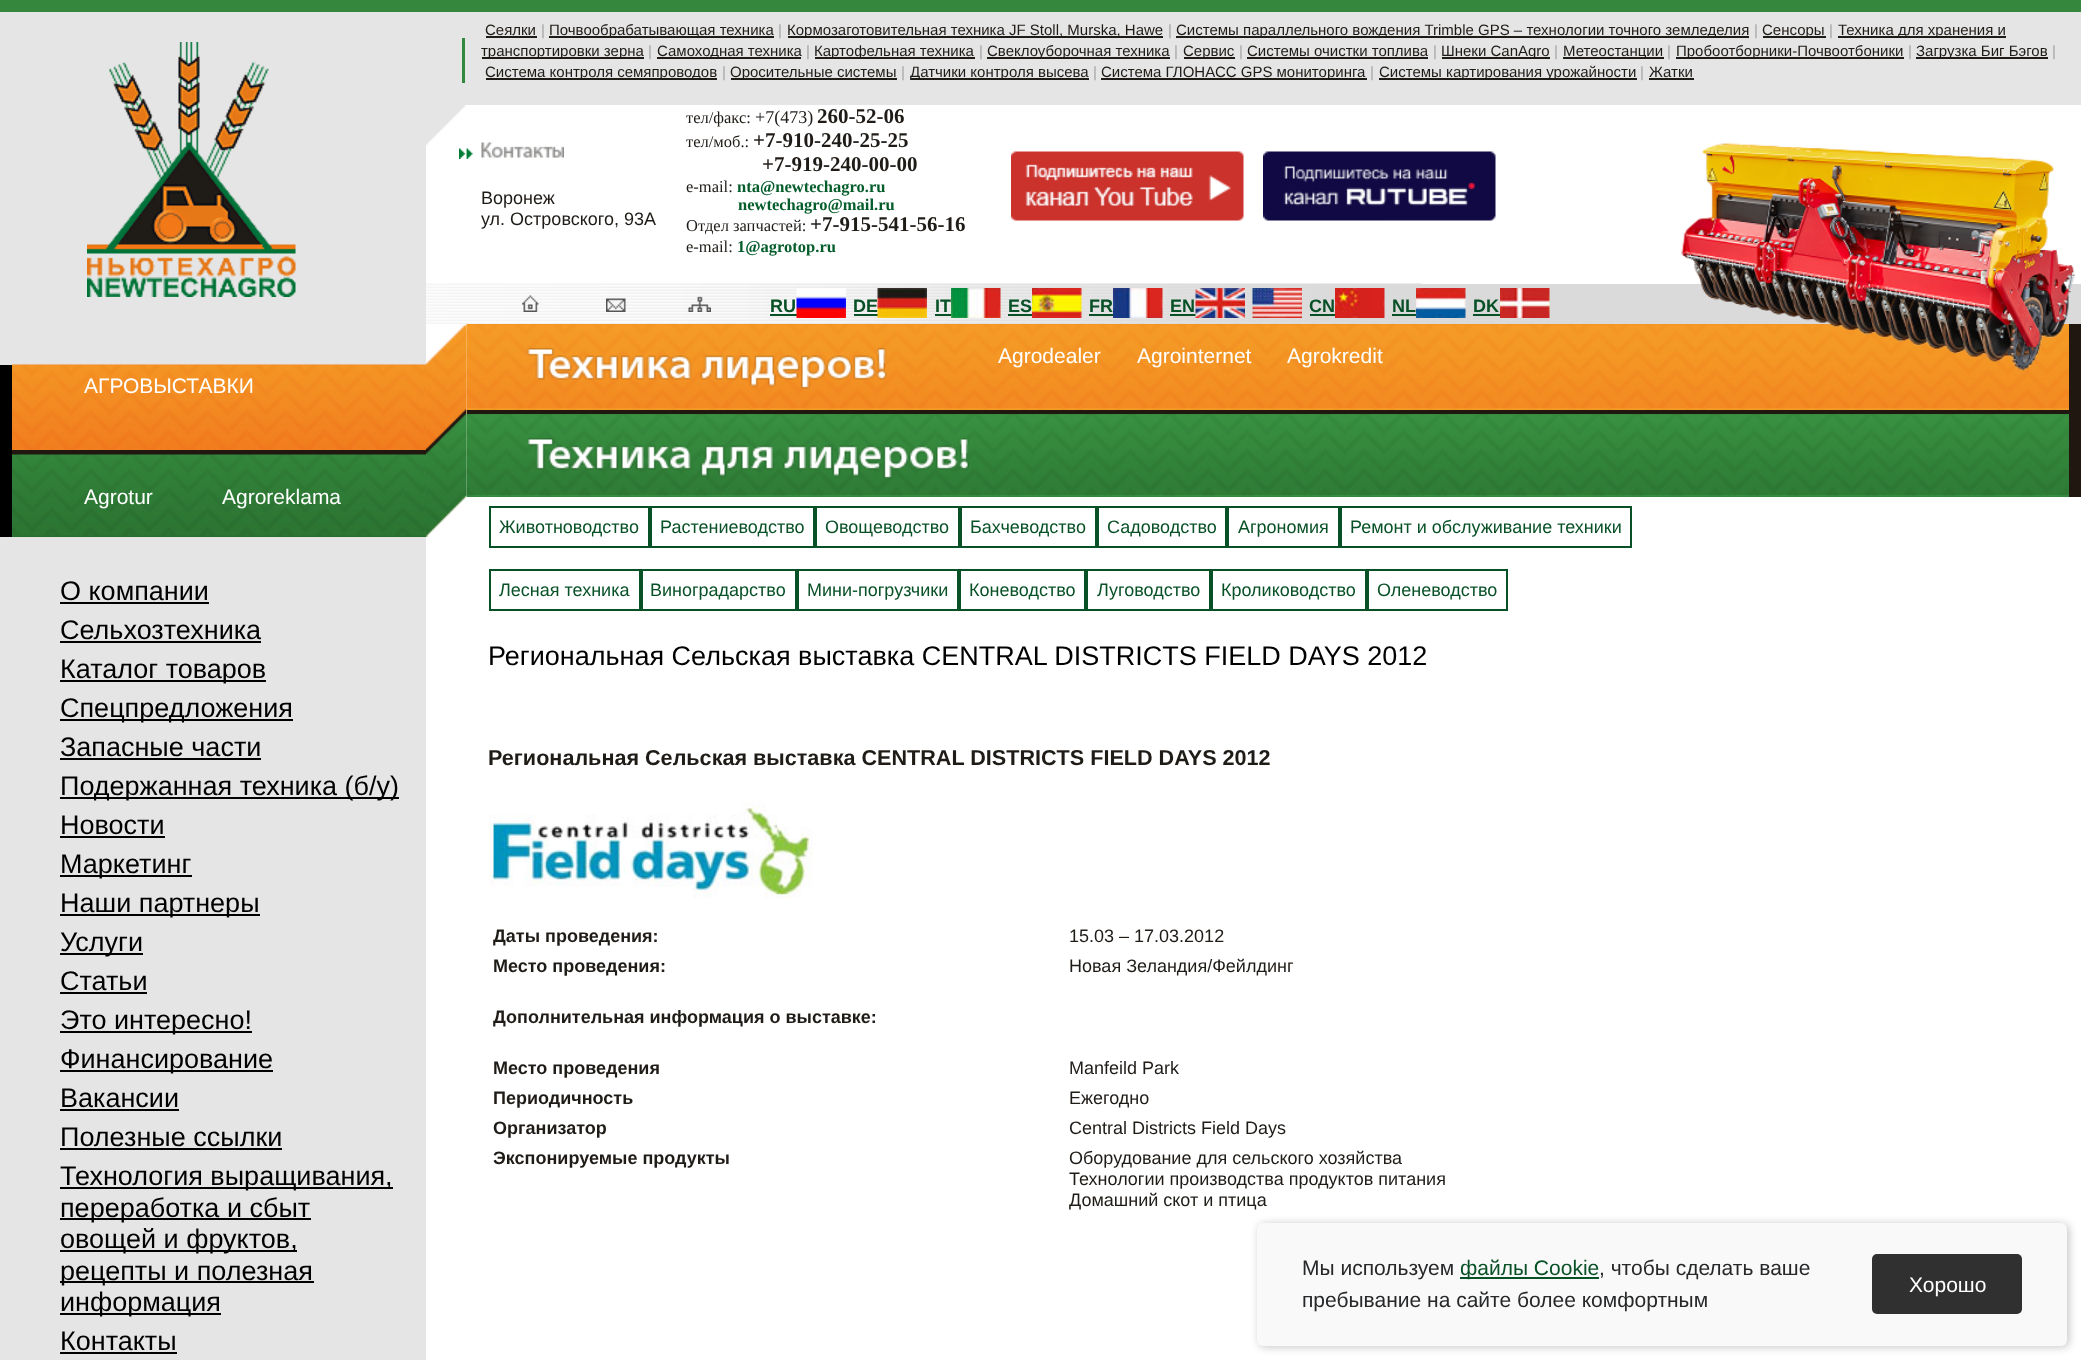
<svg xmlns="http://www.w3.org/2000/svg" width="2081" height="1360">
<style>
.a{font:15px Liberation Sans;fill:#1f1b17}
.b{font:15px Liberation Sans;fill:#a5a5a5}
.c{font:16.5px Liberation Serif;fill:#1f1b17}
.d{font:18px Liberation Serif;fill:#1f1b17}
.e{font:bold 21px Liberation Serif;fill:#1f1b17}
.f{font:bold 16.5px Liberation Serif;fill:#055d2c}
.g{font:18px Liberation Sans;fill:#1f1b17}
.h{font:bold 18px Liberation Sans;fill:#085127}
.i{font:21px Liberation Sans;fill:#fff}
.j{font:27px Liberation Sans;fill:#000}
.k{font:18px Liberation Sans;fill:#085127}
.l{font:bold 21.6px Liberation Sans;fill:#1f1b17}
.m{font:bold 18px Liberation Sans;fill:#1f1b17}
.n{font:21px Liberation Sans;fill:#26282a}
.o{font:21px Liberation Sans;fill:#085127}
</style>
<rect width="100%" height="100%" fill="#fff"/>
<path fill="#34873c" d="M0 0h2081v12H0z"/>
<path fill="#e5e5e5" d="M0 12h426v353H0z"/>
<path fill="#e5e5e5" d="M426 12h1655v93H426z"/>
<image href="1.png" x="426" y="105" width="40" height="41"/>
<image href="2.png" x="87" y="42" width="209" height="255"/>
<path fill="#1f1b17" d="M486 36h51v2H486z"/>
<path fill="#1f1b17" d="M549 36h225v2H549z"/>
<path fill="#1f1b17" d="M788 36h375v2H788z"/>
<path fill="#1f1b17" d="M1176 36h573v2H1176z"/>
<path fill="#1f1b17" d="M1763 36h63v2H1763z"/>
<path fill="#1f1b17" d="M1838 36h168v2H1838z"/>
<path fill="#34873c" d="M462 38h3v45H462z"/>
<path fill="#1f1b17" d="M482 57h162v2H482z"/>
<path fill="#1f1b17" d="M657 57h144v2H657z"/>
<path fill="#1f1b17" d="M815 57h160v2H815z"/>
<path fill="#1f1b17" d="M987 57h183v2H987z"/>
<path fill="#1f1b17" d="M1184 57h51v2H1184z"/>
<path fill="#1f1b17" d="M1247 57h181v2H1247z"/>
<path fill="#1f1b17" d="M1442 57h108v2H1442z"/>
<path fill="#1f1b17" d="M1563 57h101v2H1563z"/>
<path fill="#1f1b17" d="M1676 57h228v2H1676z"/>
<path fill="#1f1b17" d="M1916 57h132v2H1916z"/>
<path fill="#1f1b17" d="M486 78h231v2H486z"/>
<path fill="#1f1b17" d="M731 78h166v2H731z"/>
<path fill="#1f1b17" d="M911 78h178v2H911z"/>
<path fill="#1f1b17" d="M1101 78h266v2H1101z"/>
<path fill="#1f1b17" d="M1379 78h258v2H1379z"/>
<path fill="#1f1b17" d="M1649 78h45v2H1649z"/>
<image href="3.png" x="459" y="148" width="14" height="11"/>
<image href="4.png" x="481" y="142" width="83" height="16"/>
<image href="5.png" x="1011" y="151" width="233" height="70"/>
<image href="6.png" x="1263" y="151" width="233" height="70"/>
<image href="7.png" x="426" y="283" width="996" height="41"/>
<image href="8.png" x="522" y="295" width="17" height="17"/>
<image href="9.png" x="606" y="298" width="20" height="14"/>
<image href="10.png" x="688" y="296" width="23" height="16"/>
<path fill="#085127" d="M770 314h27v2H770z"/>
<image href="11.png" x="796" y="288" width="50" height="30"/>
<path fill="#085127" d="M854 314h24v2H854z"/>
<path fill="#085127" d="M935 314h16v2H935z"/>
<path fill="#085127" d="M1008 314h24v2H1008z"/>
<image href="14.png" x="1032" y="288" width="50" height="30"/>
<path fill="#085127" d="M1089 314h24v2H1089z"/>
<image href="15.png" x="1113" y="288" width="50" height="30"/>
<path fill="#085127" d="M1170 314h26v2H1170z"/>
<image href="16.png" x="1195" y="288" width="50" height="30"/>
<image href="17.png" x="1252" y="288" width="50" height="30"/>
<path fill="#085127" d="M1310 314h25v2H1310z"/>
<image href="18.png" x="1335" y="288" width="50" height="30"/>
<path fill="#085127" d="M1392 314h24v2H1392z"/>
<path fill="#dadada" d="M1422 284h659v40H1422z"/>
<image href="19.png" x="1416" y="288" width="50" height="30"/>
<path fill="#085127" d="M1473 314h27v2H1473z"/>
<image href="20.png" x="1500" y="288" width="50" height="30"/>
<image href="21.png" x="426" y="325" width="41" height="212"/>
<image href="23.png" x="466" y="324" width="1603" height="90"/>
<path fill="#211711" d="M2069 324h12v86H2069z"/>
<image href="22.png" x="1681" y="143" width="395" height="229"/>
<path fill="#211711" d="M467 410h1614v4H467z"/>
<image href="24.png" x="526" y="348" width="361" height="41"/>
<path fill="#307f38" d="M467 496h1602v1H467z"/>
<image href="25.png" x="466" y="414" width="1603" height="83"/>
<path fill="#211711" d="M2069 414h12v83H2069z"/>
<image href="26.png" x="526" y="438" width="443" height="41"/>
<path fill="#000" d="M0 365h12v172H0z"/>
<image href="27.png" x="12" y="364" width="414" height="86"/>
<path fill="#211711" d="M12 450h414v5H12z"/>
<image href="28.png" x="12" y="454" width="414" height="83"/>
<path fill="#e5e5e5" d="M0 537h426v823H0z"/>
<path fill="#000" d="M60 602h149v2H60z"/>
<path fill="#000" d="M60 641h201v2H60z"/>
<path fill="#000" d="M60 680h206v2H60z"/>
<path fill="#000" d="M60 719h233v2H60z"/>
<path fill="#000" d="M60 758h201v2H60z"/>
<path fill="#000" d="M60 797h339v2H60z"/>
<path fill="#000" d="M60 836h105v2H60z"/>
<path fill="#000" d="M60 875h132v2H60z"/>
<path fill="#000" d="M60 914h200v2H60z"/>
<path fill="#000" d="M60 953h83v2H60z"/>
<path fill="#000" d="M60 992h87v2H60z"/>
<path fill="#000" d="M60 1031h192v2H60z"/>
<path fill="#000" d="M60 1070h213v2H60z"/>
<path fill="#000" d="M60 1109h119v2H60z"/>
<path fill="#000" d="M60 1148h222v2H60z"/>
<path fill="#000" d="M60 1187h333v2H60z"/>
<path fill="#000" d="M60 1218h251v2H60z"/>
<path fill="#000" d="M60 1250h237v2H60z"/>
<path fill="#000" d="M60 1281h254v2H60z"/>
<path fill="#000" d="M60 1313h161v2H60z"/>
<path fill="#000" d="M60 1352h117v2H60z"/>
<path fill="none" stroke="#085127" stroke-width="2" d="M490 507h159v40H490z"/>
<path fill="none" stroke="#085127" stroke-width="2" d="M651 507h163v40H651z"/>
<path fill="none" stroke="#085127" stroke-width="2" d="M816 507h143v40H816z"/>
<path fill="none" stroke="#085127" stroke-width="2" d="M961 507h135v40H961z"/>
<path fill="none" stroke="#085127" stroke-width="2" d="M1098 507h128v40H1098z"/>
<path fill="none" stroke="#085127" stroke-width="2" d="M1228 507h111v40H1228z"/>
<path fill="none" stroke="#085127" stroke-width="2" d="M1341 507h290v40H1341z"/>
<path fill="none" stroke="#085127" stroke-width="2" d="M490 570h150v40H490z"/>
<path fill="none" stroke="#085127" stroke-width="2" d="M642 570h154v40H642z"/>
<path fill="none" stroke="#085127" stroke-width="2" d="M798 570h160v40H798z"/>
<path fill="none" stroke="#085127" stroke-width="2" d="M960 570h125v40H960z"/>
<path fill="none" stroke="#085127" stroke-width="2" d="M1087 570h123v40H1087z"/>
<path fill="none" stroke="#085127" stroke-width="2" d="M1212 570h154v40H1212z"/>
<path fill="none" stroke="#085127" stroke-width="2" d="M1368 570h139v40H1368z"/>
<image href="29.png" x="489" y="802" width="324" height="97"/>
<rect fill="#0000003b" filter="blur(4px)" x="1259" y="1224" width="810" height="123" rx="6"/>
<rect fill="#faf9f9" x="1257" y="1223" width="810" height="123" rx="6"/>
<path fill="#085127" d="M1460 1277h139v2H1460z"/>
<rect fill="#303030" x="1872" y="1254" width="150" height="60" rx="5"/>
<text class="a" x="485" y="35">Сеялки</text>
<text class="b" x="541" y="35">|</text>
<text class="a" x="549" y="35">Почвообрабатывающая техника</text>
<text class="b" x="778" y="35">|</text>
<text class="a" x="787" y="35">Кормозаготовительная техника JF Stoll, Murska, Hawe</text>
<text class="b" x="1168" y="35">|</text>
<text class="a" x="1176" y="35">Системы параллельного вождения Trimble GPS – технологии точного земледелия</text>
<text class="b" x="1754" y="35">|</text>
<text class="a" x="1762" y="35">Сенсоры</text>
<text class="b" x="1829" y="35">|</text>
<text class="a" x="1838" y="35">Техника для хранения и</text>
<text class="a" x="481" y="56">транспортировки зерна</text>
<text class="b" x="648" y="56">|</text>
<text class="a" x="657" y="56">Самоходная техника</text>
<text class="b" x="806" y="56">|</text>
<text class="a" x="814" y="56">Картофельная техника</text>
<text class="b" x="979" y="56">|</text>
<text class="a" x="987" y="56">Свеклоуборочная техника</text>
<text class="b" x="1174" y="56">|</text>
<text class="a" x="1183" y="56">Сервис</text>
<text class="b" x="1239" y="56">|</text>
<text class="a" x="1247" y="56">Системы очистки топлива</text>
<text class="b" x="1433" y="56">|</text>
<text class="a" x="1441" y="56">Шнеки CanAgro</text>
<text class="b" x="1554" y="56">|</text>
<text class="a" x="1563" y="56">Метеостанции</text>
<text class="b" x="1667" y="56">|</text>
<text class="a" x="1676" y="56">Пробоотборники-Почвоотбоники</text>
<text class="b" x="1908" y="56">|</text>
<text class="a" x="1916" y="56">Загрузка Биг Бэгов</text>
<text class="b" x="2052" y="56">|</text>
<text class="a" x="485" y="77">Система контроля семяпроводов</text>
<text class="b" x="722" y="77">|</text>
<text class="a" x="730" y="77">Оросительные системы</text>
<text class="b" x="901" y="77">|</text>
<text class="a" x="910" y="77">Датчики контроля высева</text>
<text class="b" x="1093" y="77">|</text>
<text class="a" x="1101" y="77">Система ГЛОНАСС GPS мониторинга</text>
<text class="b" x="1370" y="77">|</text>
<text class="a" x="1379" y="77">Системы картирования урожайности</text>
<text class="b" x="1640" y="77">|</text>
<text class="a" x="1649" y="77">Жатки</text>
<text class="c" x="686" y="123">тел/факс:</text>
<text class="d" x="755" y="123">+7(473)</text>
<text class="e" x="817" y="123">260-52-06</text>
<text class="c" x="686" y="147">тел/моб.:</text>
<text class="e" x="753" y="147">+7-910-240-25-25</text>
<text class="e" x="762" y="171">+7-919-240-00-00</text>
<text class="c" x="686" y="192">e-mail:</text>
<text class="f" x="737" y="192">nta@newtechagro.ru</text>
<text class="f" x="738" y="210">newtechagro@mail.ru</text>
<text class="c" x="686" y="231">Отдел запчастей:</text>
<text class="e" x="810" y="231">+7-915-541-56-16</text>
<text class="c" x="686" y="252">e-mail:</text>
<text class="f" x="737" y="252">1@agrotop.ru</text>
<text class="g" x="481" y="204">Воронеж</text>
<text class="g" x="481" y="225">ул. Островского, 93А</text>
<text class="h" x="770" y="312">RU</text>
<text class="h" x="853" y="312">DE</text>
<image href="12.png" x="877" y="288" width="50" height="30"/>
<text class="h" x="935" y="312">IT</text>
<image href="13.png" x="951" y="288" width="50" height="30"/>
<text class="h" x="1008" y="312">ES</text>
<text class="h" x="1089" y="312">FR</text>
<text class="h" x="1170" y="312">EN</text>
<text class="h" x="1309" y="312">CN</text>
<text class="h" x="1392" y="312">NL</text>
<text class="h" x="1473" y="312">DK</text>
<text class="i" x="998" y="363">Agrodealer</text>
<text class="i" x="1137" y="363">Agrointernet</text>
<text class="i" x="1287" y="363">Agrokredit</text>
<text class="i" x="84" y="393">АГРОВЫСТАВКИ</text>
<text class="i" x="84" y="504">Agrotur</text>
<text class="i" x="222" y="504">Agroreklama</text>
<text class="j" x="60" y="600">О компании</text>
<text class="j" x="60" y="639">Сельхозтехника</text>
<text class="j" x="60" y="678">Каталог товаров</text>
<text class="j" x="60" y="717">Спецпредложения</text>
<text class="j" x="60" y="756">Запасные части</text>
<text class="j" x="60" y="795">Подержанная техника (б/у)</text>
<text class="j" x="60" y="834">Новости</text>
<text class="j" x="60" y="873">Маркетинг</text>
<text class="j" x="60" y="912">Наши партнеры</text>
<text class="j" x="60" y="951">Услуги</text>
<text class="j" x="60" y="990">Статьи</text>
<text class="j" x="60" y="1029">Это интересно!</text>
<text class="j" x="60" y="1068">Финансирование</text>
<text class="j" x="60" y="1107">Вакансии</text>
<text class="j" x="60" y="1146">Полезные ссылки</text>
<text class="j" x="60" y="1185">Технология выращивания,</text>
<text class="j" x="60" y="1217">переработка и сбыт</text>
<text class="j" x="60" y="1248">овощей и фруктов,</text>
<text class="j" x="60" y="1280">рецепты и полезная</text>
<text class="j" x="60" y="1311">информация</text>
<text class="j" x="60" y="1350">Контакты</text>
<text class="k" x="499" y="533">Животноводство</text>
<text class="k" x="660" y="533">Растениеводство</text>
<text class="k" x="825" y="533">Овощеводство</text>
<text class="k" x="970" y="533">Бахчеводство</text>
<text class="k" x="1107" y="533">Садоводство</text>
<text class="k" x="1238" y="533">Агрономия</text>
<text class="k" x="1350" y="533">Ремонт и обслуживание техники</text>
<text class="k" x="499" y="596">Лесная техника</text>
<text class="k" x="650" y="596">Виноградарство</text>
<text class="k" x="807" y="596">Мини-погрузчики</text>
<text class="k" x="969" y="596">Коневодство</text>
<text class="k" x="1097" y="596">Луговодство</text>
<text class="k" x="1221" y="596">Кролиководство</text>
<text class="k" x="1377" y="596">Оленеводство</text>
<text class="j" x="488" y="665">Региональная Сельская выставка CENTRAL DISTRICTS FIELD DAYS 2012</text>
<text class="l" x="488" y="765">Региональная Сельская выставка CENTRAL DISTRICTS FIELD DAYS 2012</text>
<text class="m" x="493" y="942">Даты проведения:</text>
<text class="g" x="1069" y="942">15.03 – 17.03.2012</text>
<text class="m" x="493" y="972">Место проведения:</text>
<text class="g" x="1069" y="972">Новая Зеландия/Фейлдинг</text>
<text class="m" x="493" y="1023">Дополнительная информация о выставке:</text>
<text class="m" x="493" y="1074">Место проведения</text>
<text class="g" x="1069" y="1074">Manfeild Park</text>
<text class="m" x="493" y="1104">Периодичность</text>
<text class="g" x="1069" y="1104">Ежегодно</text>
<text class="m" x="493" y="1134">Организатор</text>
<text class="g" x="1069" y="1134">Central Districts Field Days</text>
<text class="m" x="493" y="1164">Экспонируемые продукты</text>
<text class="g" x="1069" y="1164">Оборудование для сельского хозяйства</text>
<text class="g" x="1069" y="1185">Технологии производства продуктов питания</text>
<text class="g" x="1069" y="1206">Домашний скот и птица</text>
<text class="n" x="1302" y="1275">Мы используем</text>
<text class="o" x="1460" y="1275">файлы Cookie</text>
<text class="n" x="1599" y="1275">, чтобы сделать ваше</text>
<text class="n" x="1302" y="1307">пребывание на сайте более комфортным</text>
<text class="i" x="1909" y="1292">Хорошо</text>
</svg>
